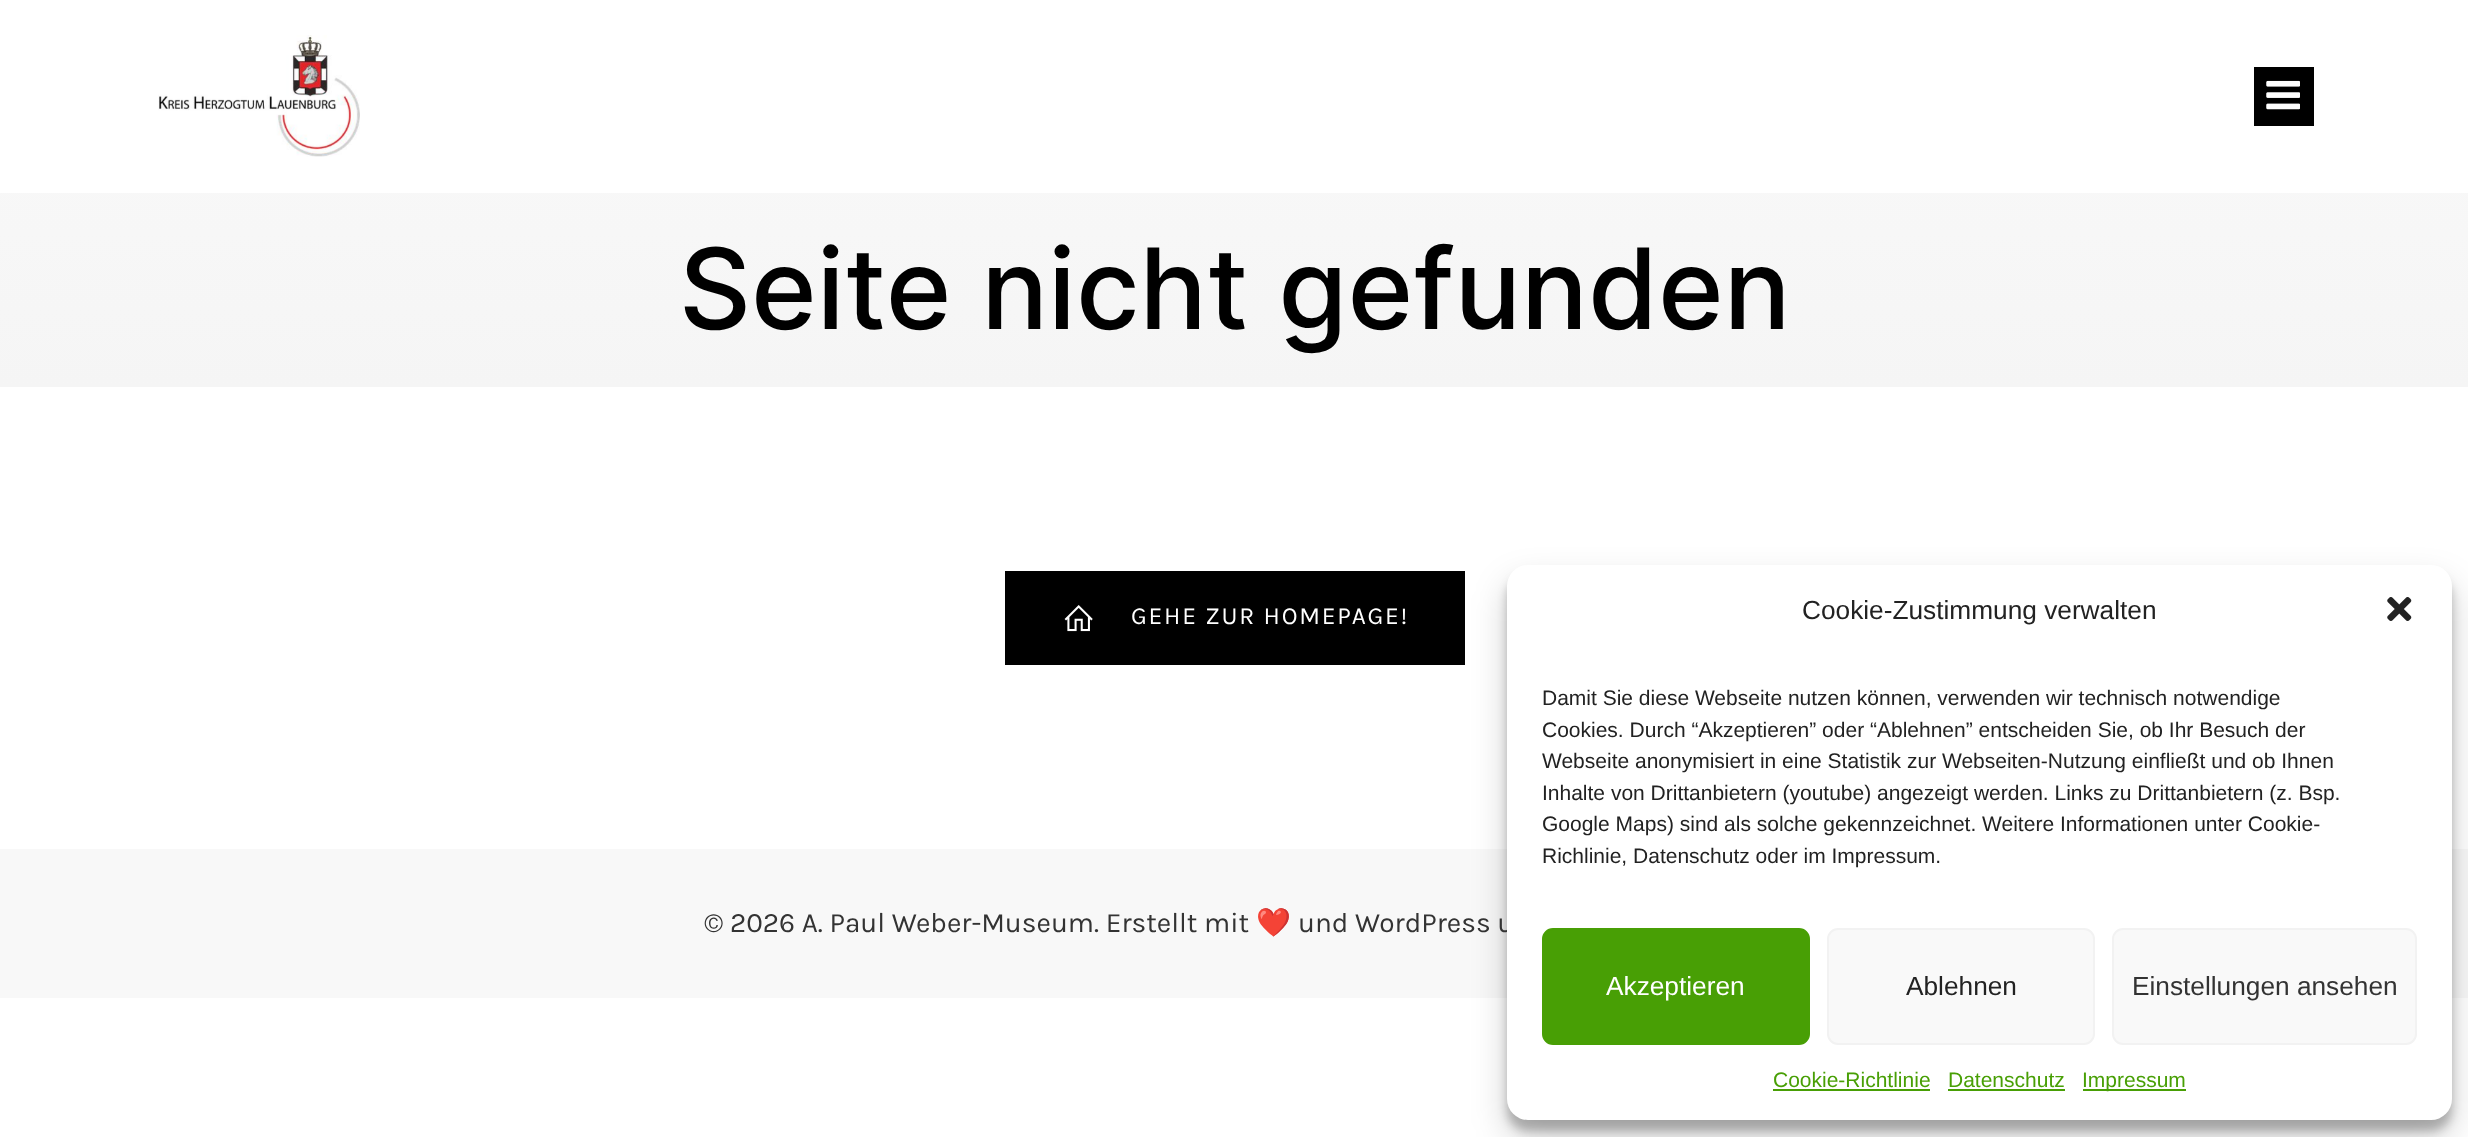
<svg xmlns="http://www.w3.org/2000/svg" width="2468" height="1137">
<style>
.a{font:500 112px Inter;fill:#000}
.b{font:24.5px Karla;letter-spacing:1.75px;fill:#fff}
.c{font:28px Karla;fill:#333}
.d{font:28px Noto Color Emoji;fill:#333}
.e{font:26.25px Liberation Sans;fill:#222}
.f{font:21px Liberation Sans;fill:#222}
.g{font:26.25px Liberation Sans;fill:#fff}
.h{font:26.25px Liberation Sans;fill:#333}
.i{font:21px Liberation Sans;fill:#489f05}
</style>
<defs>
<linearGradient id="g1" gradientUnits="userSpaceOnUse" x1="1235" y1="387" x2="1235" y2="0"><stop offset="0" stop-color="#f5f5f5"/><stop offset="1" stop-color="#fafafa"/></linearGradient>
</defs>
<rect width="100%" height="100%" fill="#fff"/>
<image href="1.png" x="158" y="35" width="202" height="122"/>
<path fill="#000" d="M2254 67h60v59H2254z"/>
<image href="2.png" x="2266" y="80" width="34" height="30"/>
<path fill="url(#g1)" d="M0 193h2468v194H0z"/>
<path fill="#000" d="M1005 571h460v94H1005z"/>
<image href="3.png" x="1064" y="605" width="29" height="27"/>
<path fill="#f8f8f8" d="M0 849h2468v149H0z"/>
<rect fill="#0000003b" filter="blur(5px)" x="1507" y="576" width="945" height="555" rx="21"/>
<rect fill="#00000030" filter="blur(17.5px)" x="1507" y="583" width="945" height="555" rx="21"/>
<text class="a" x="679" y="329">Seite nicht gefunden</text>
<text class="b" x="1131" y="624">GEHE ZUR HOMEPAGE!</text>
<text class="c" x="704" y="932">© 2026 A. Paul Weber-Museum. Erstellt mit</text>
<text class="d" x="1256" y="932">❤️</text>
<text class="c" x="1298" y="932">und WordPress u</text>
<rect fill="#fff" x="1507" y="565" width="945" height="555" rx="21"/>
<text class="e" x="1802" y="619">Cookie-Zustimmung verwalten</text>
<image href="4.png" x="2387" y="597" width="25" height="24"/>
<text class="f" x="1542" y="705">Damit Sie diese Webseite nutzen können, verwenden wir technisch notwendige</text>
<text class="f" x="1542" y="737">Cookies. Durch “Akzeptieren” oder “Ablehnen” entscheiden Sie, ob Ihr Besuch der</text>
<text class="f" x="1542" y="768">Webseite anonymisiert in eine Statistik zur Webseiten-Nutzung einfließt und ob Ihnen</text>
<text class="f" x="1542" y="800">Inhalte von Drittanbietern (youtube) angezeigt werden. Links zu Drittanbietern (z. Bsp.</text>
<text class="f" x="1542" y="831">Google Maps) sind als solche gekennzeichnet. Weitere Informationen unter Cookie-</text>
<text class="f" x="1542" y="863">Richlinie, Datenschutz oder im Impressum.</text>
<rect fill="#489f05" stroke="#489f05" stroke-width="2" x="1543" y="929" width="266" height="115" rx="10"/>
<text class="g" x="1606" y="995">Akzeptieren</text>
<rect fill="#f9f9f9" stroke="#f2f2f2" stroke-width="2" x="1828" y="929" width="266" height="115" rx="10"/>
<text class="e" x="1906" y="995">Ablehnen</text>
<rect fill="#f9f9f9" stroke="#f2f2f2" stroke-width="2" x="2113" y="929" width="303" height="115" rx="10"/>
<text class="h" x="2132" y="995">Einstellungen ansehen</text>
<text class="i" x="1773" y="1087">Cookie-Richtlinie</text>
<path fill="#489f05" d="M1773 1089h157v2H1773z"/>
<text class="i" x="1948" y="1087">Datenschutz</text>
<path fill="#489f05" d="M1948 1089h117v2H1948z"/>
<path fill="#489f05" d="M2083 1089h103v2H2083z"/>
<text class="i" x="2082" y="1087">Impressum</text>
</svg>
